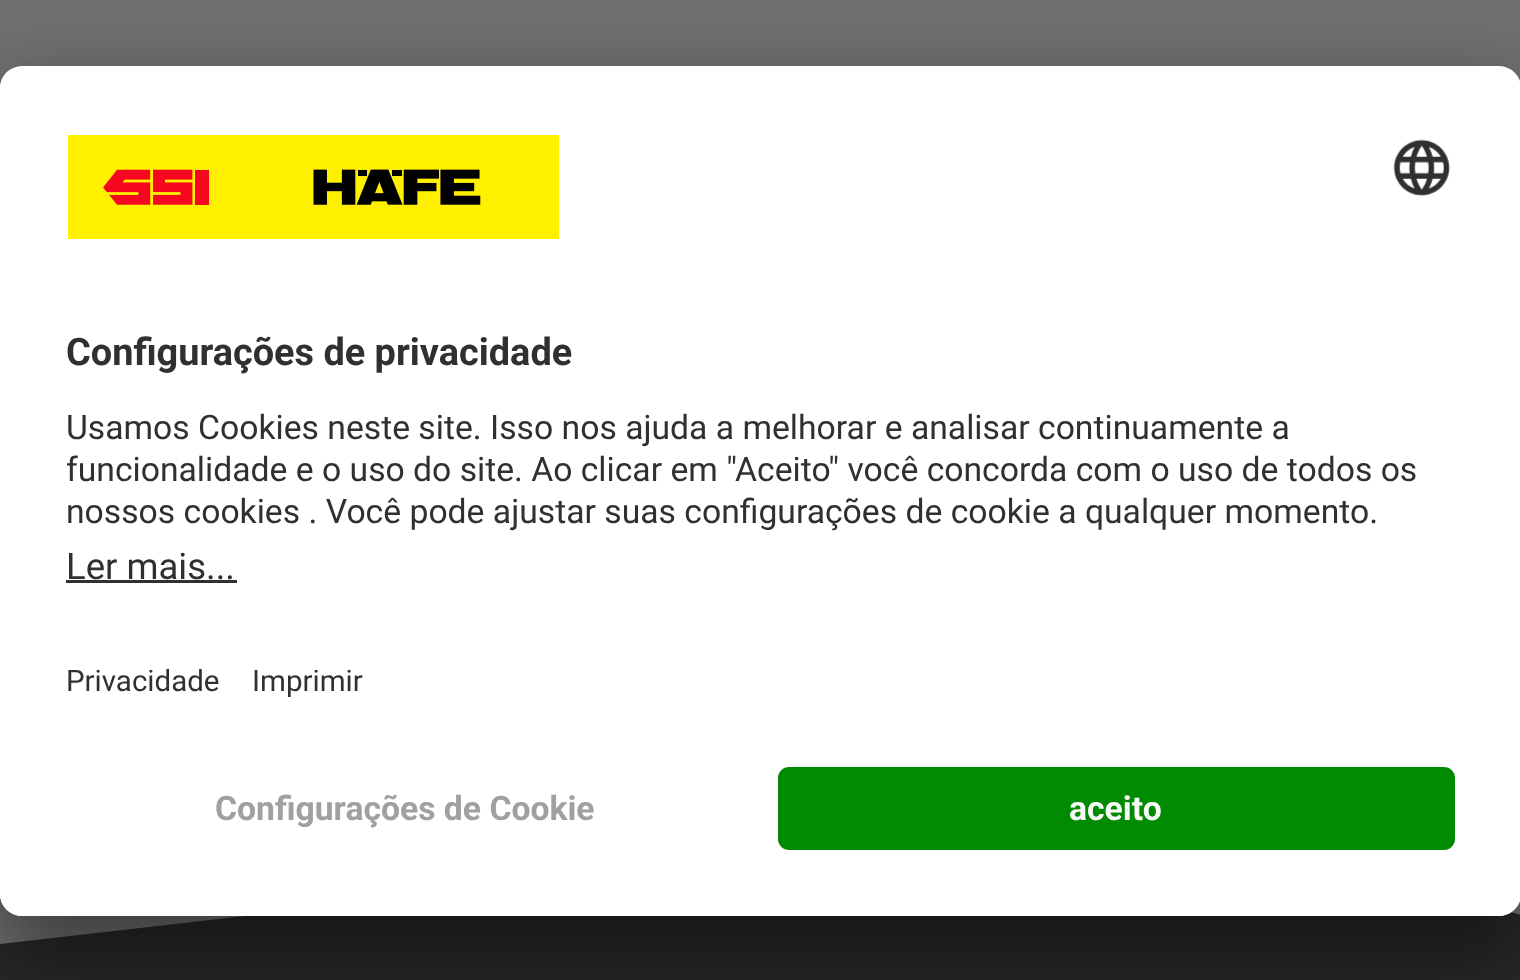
<svg xmlns="http://www.w3.org/2000/svg" width="1520" height="980">
<style>
.a{font:bold 37.9px Roboto;fill:#303030}
.b{font:33.7px Roboto;fill:#303030}
.c{font:36.5px Roboto;fill:#303030}
.d{font:29.5px Roboto;fill:#303030}
.e{font:bold 33.7px Roboto;fill:#a1a0a0}
.f{font:bold 33.7px Roboto;fill:#fafafa}
</style>
<defs>
<clipPath id="clip1"><rect y="66" width="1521" height="850" rx="22"/></clipPath>
<clipPath id="clip2"><path d="M22 66h1477c12 0 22 10 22 22v657h-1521v-657c0-12 10-22 22-22z"/></clipPath>
</defs>
<rect width="100%" height="100%" fill="#707070"/>
<path fill="#292928" d="M1156 812l-1156 132v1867h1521v-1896z"/>
<rect fill="#0000004d" filter="blur(38.5px)" y="121" width="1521" height="850" rx="22"/>
<rect fill="#00000038" filter="blur(36px)" y="80" width="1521" height="850" rx="22"/>
<rect fill="#fff" y="66" width="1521" height="850" rx="22"/>
<g clip-path="url(#clip1)">
<g clip-path="url(#clip2)">
<path fill="#fff" d="M0 69h1520v676H0z"/>
</g>
</g>
<image href="1.png" x="68" y="135" width="491" height="104"/>
<image href="2.png" x="1393" y="139" width="57" height="57"/>
<path fill="#303030" d="M66 580h171v3H66z"/>
<path fill="#fff" d="M0 745h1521v149c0 12-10 22-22 22h-1477c-12 0-22-10-22-22z"/>
<rect fill="#008b02" x="778" y="767" width="677" height="83" rx="11"/>
<text class="a" x="66" y="365">Configurações de privacidade</text>
<text class="b" x="66" y="439">Usamos Cookies neste site. Isso nos ajuda a melhorar e analisar continuamente a</text>
<text class="b" x="66" y="481">funcionalidade e o uso do site. Ao clicar em "Aceito" você concorda com o uso de todos os</text>
<text class="b" x="66" y="523">nossos cookies . Você pode ajustar suas configurações de cookie a qualquer momento.</text>
<text class="c" x="66" y="579">Ler mais...</text>
<text class="d" x="66" y="691">Privacidade</text>
<text class="d" x="252" y="691">Imprimir</text>
<text class="e" x="215" y="820">Configurações de Cookie</text>
<text class="f" x="1069" y="820">aceito</text>
</svg>
